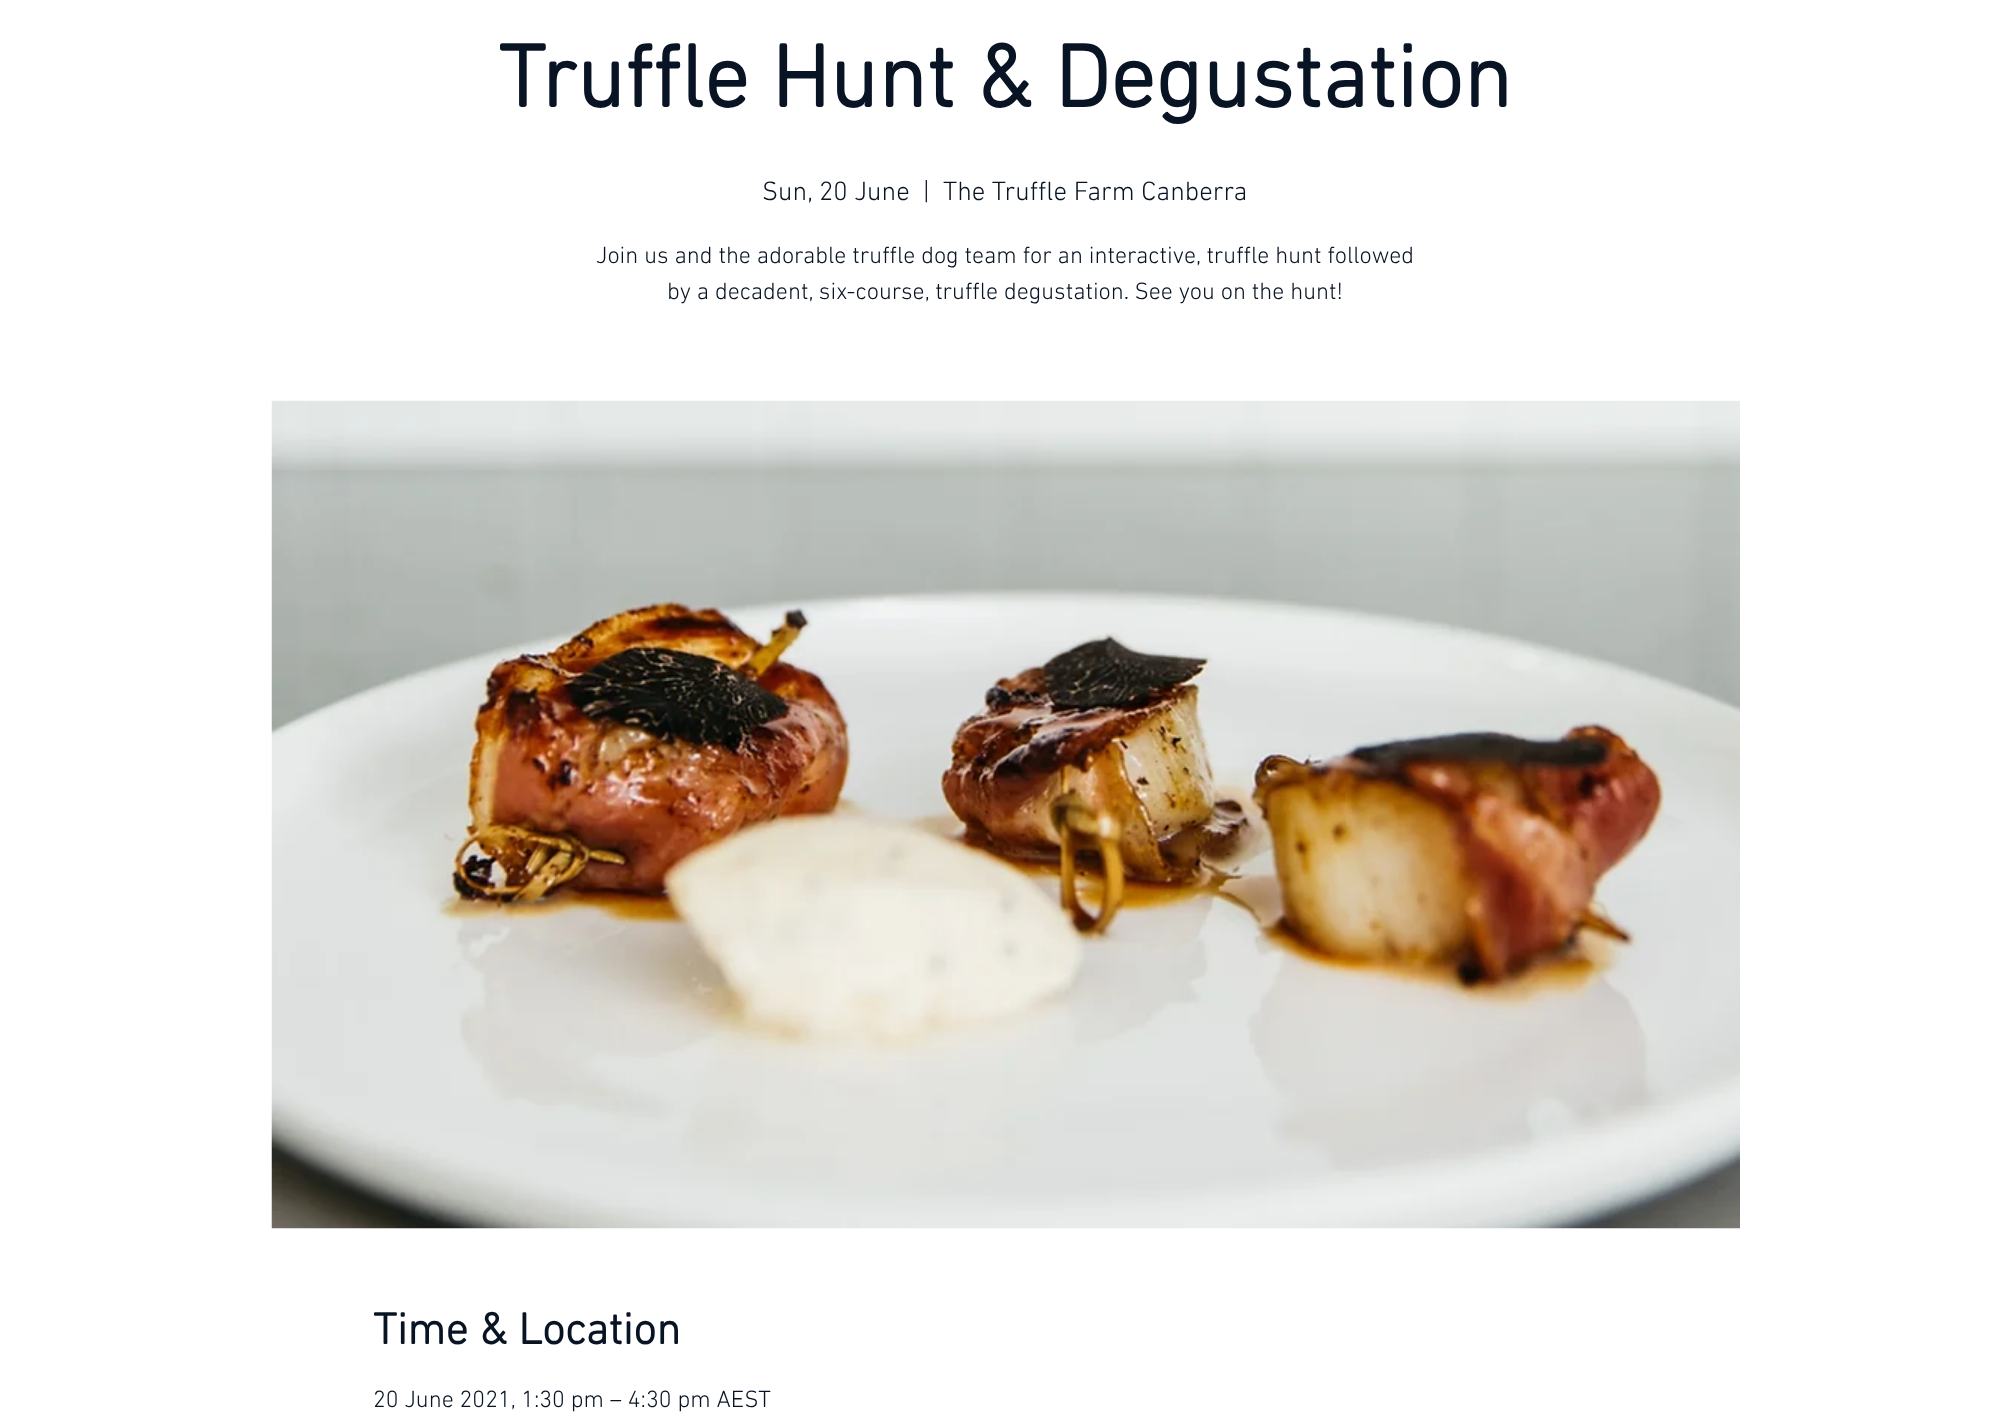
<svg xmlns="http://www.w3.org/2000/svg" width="2009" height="1416">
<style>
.a{font:bold 90px 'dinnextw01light';fill:#081423}
.b{font:300 27px 'dinnextw01light';fill:#081423}
.c{font:300 24px 'dinnextw01light';fill:#081423}
.d{font:bold 45px 'dinnextw01light';fill:#081423}
</style>
<rect width="100%" height="100%" fill="#fff"/>
<image href="1.png" x="271" y="400" width="1469" height="829"/>
<text class="a" x="498" y="107">Truffle Hunt &amp; Degustation</text>
<text class="b" x="762" y="200">Sun, 20 June</text>
<text class="b" x="923" y="200">|</text>
<text class="b" x="943" y="200">The Truffle Farm Canberra</text>
<text class="c" x="596" y="263">Join us and the adorable truffle dog team for an interactive, truffle hunt followed</text>
<text class="c" x="667" y="299">by a decadent, six-course, truffle degustation. See you on the hunt!</text>
<text class="d" x="373" y="1344">Time &amp; Location</text>
<text class="c" x="373" y="1407">20 June 2021, 1:30 pm – 4:30 pm AEST</text>
</svg>
